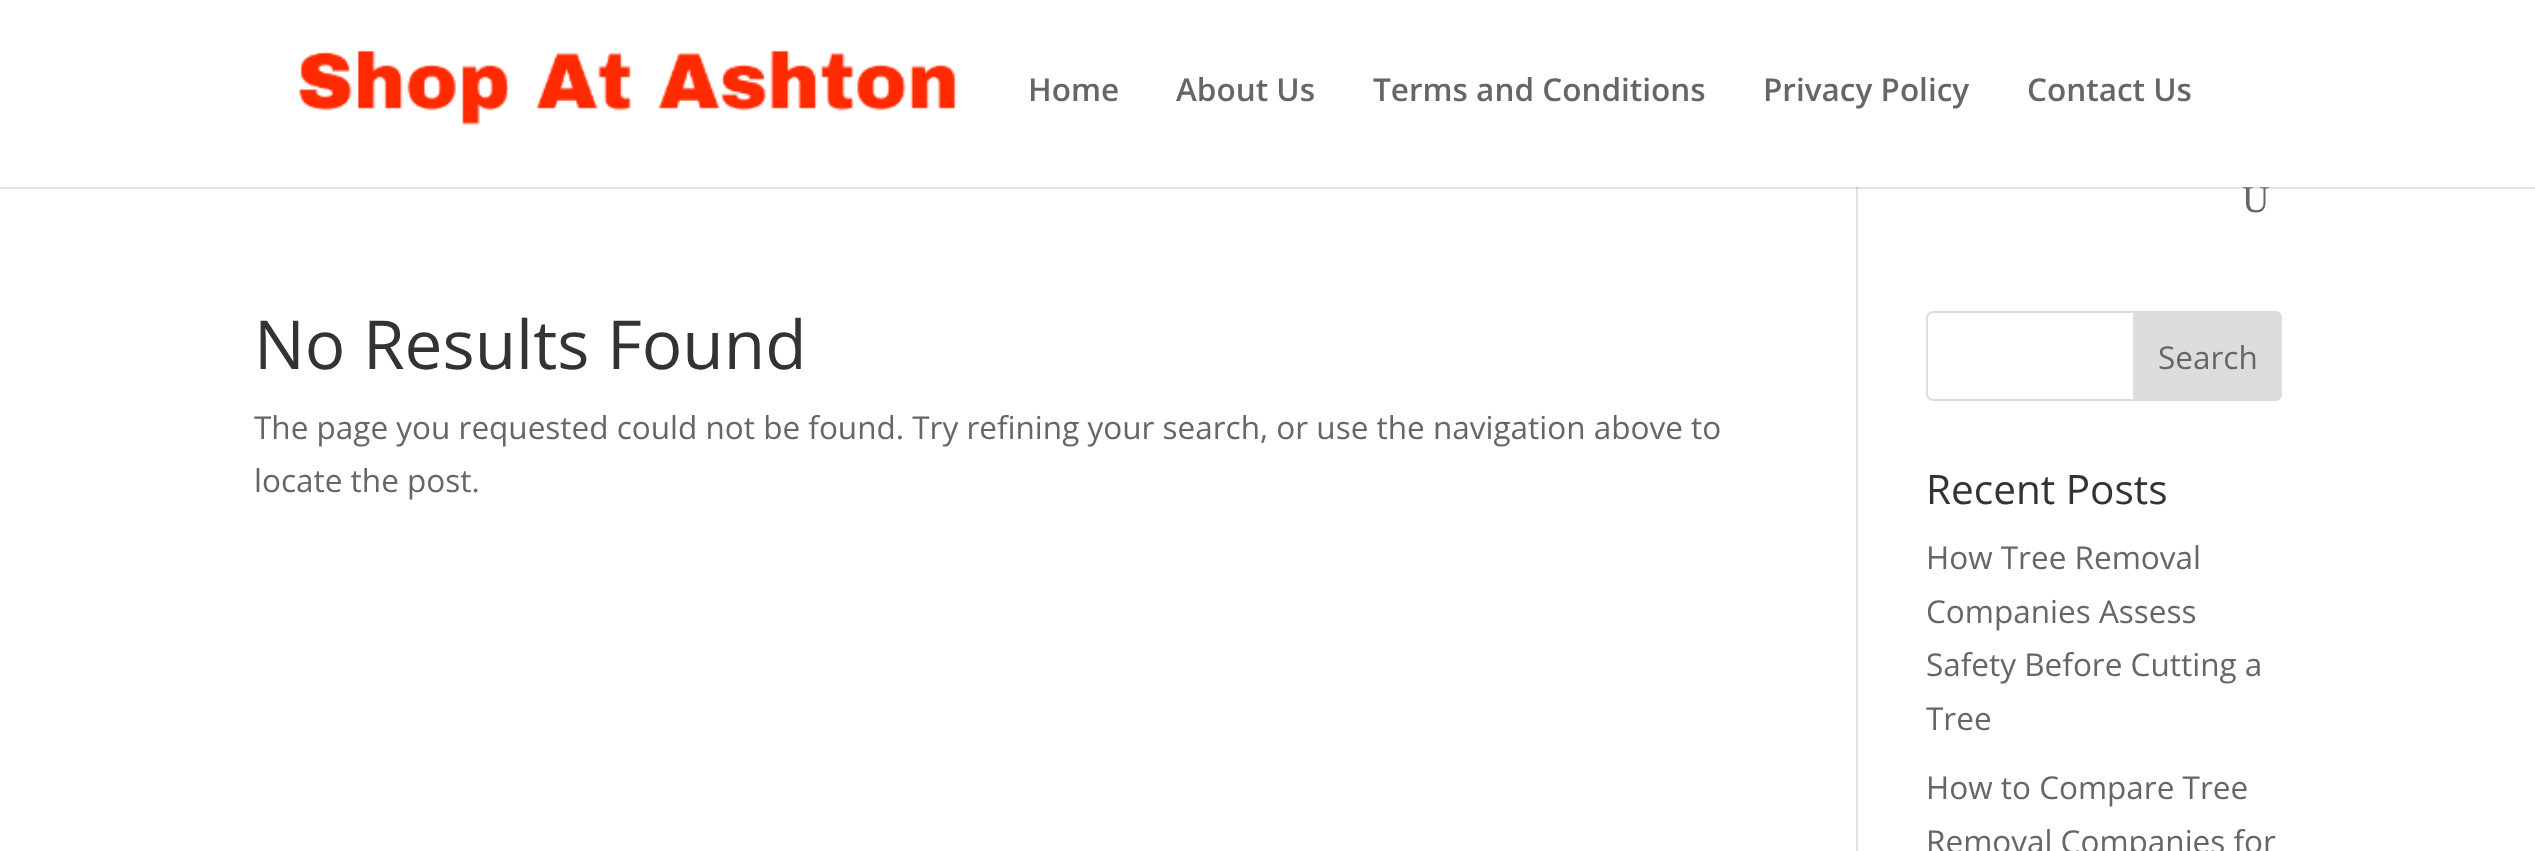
<svg xmlns="http://www.w3.org/2000/svg" width="2535" height="851">
<style>
.a{font:600 31.5px Open Sans;fill:#666}
.b{font:38px Liberation Serif;fill:#666}
.c{font:67.5px Open Sans;fill:#333}
.d{font:31.5px Open Sans;fill:#666}
.e{font:40.5px Open Sans;fill:#333}
</style>
<rect width="100%" height="100%" fill="#fff"/>
<path fill="#e2e2e2" d="M1856 180h2v671H1856z"/>
<path fill="#0000001a" d="M0 187v2h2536v-187v185z"/>
<path fill="#fff" d="M1856 180h2v7H1856z"/>
<image href="1.png" x="299" y="50" width="658" height="75"/>
<rect fill="none" stroke="#ddd" stroke-width="2" x="1927" y="312" width="354" height="88" rx="6"/>
<path fill="#ddd" stroke="#ddd" stroke-width="2" d="M2134 312h141c3.5 0 6 2.5 6 6v76c0 3.5-2.5 6-6 6h-141z"/>
<text class="a" x="1028" y="101">Home</text>
<text class="a" x="1176" y="101">About Us</text>
<text class="a" x="1373" y="101">Terms and Conditions</text>
<text class="a" x="1763" y="101">Privacy Policy</text>
<text class="a" x="2027" y="101">Contact Us</text>
<text class="b" x="2242" y="212">U</text>
<text class="c" x="254" y="369">No Results Found</text>
<text class="d" x="254" y="439">The page you requested could not be found. Try refining your search, or use the navigation above to</text>
<text class="d" x="254" y="492">locate the post.</text>
<text class="d" x="2158" y="369">Search</text>
<text class="e" x="1926" y="504">Recent Posts</text>
<text class="d" x="1926" y="569">How Tree Removal</text>
<text class="d" x="1926" y="623">Companies Assess</text>
<text class="d" x="1926" y="676">Safety Before Cutting a</text>
<text class="d" x="1926" y="730">Tree</text>
<text class="d" x="1926" y="799">How to Compare Tree</text>
<text class="d" x="1926" y="853">Removal Companies for</text>
</svg>
